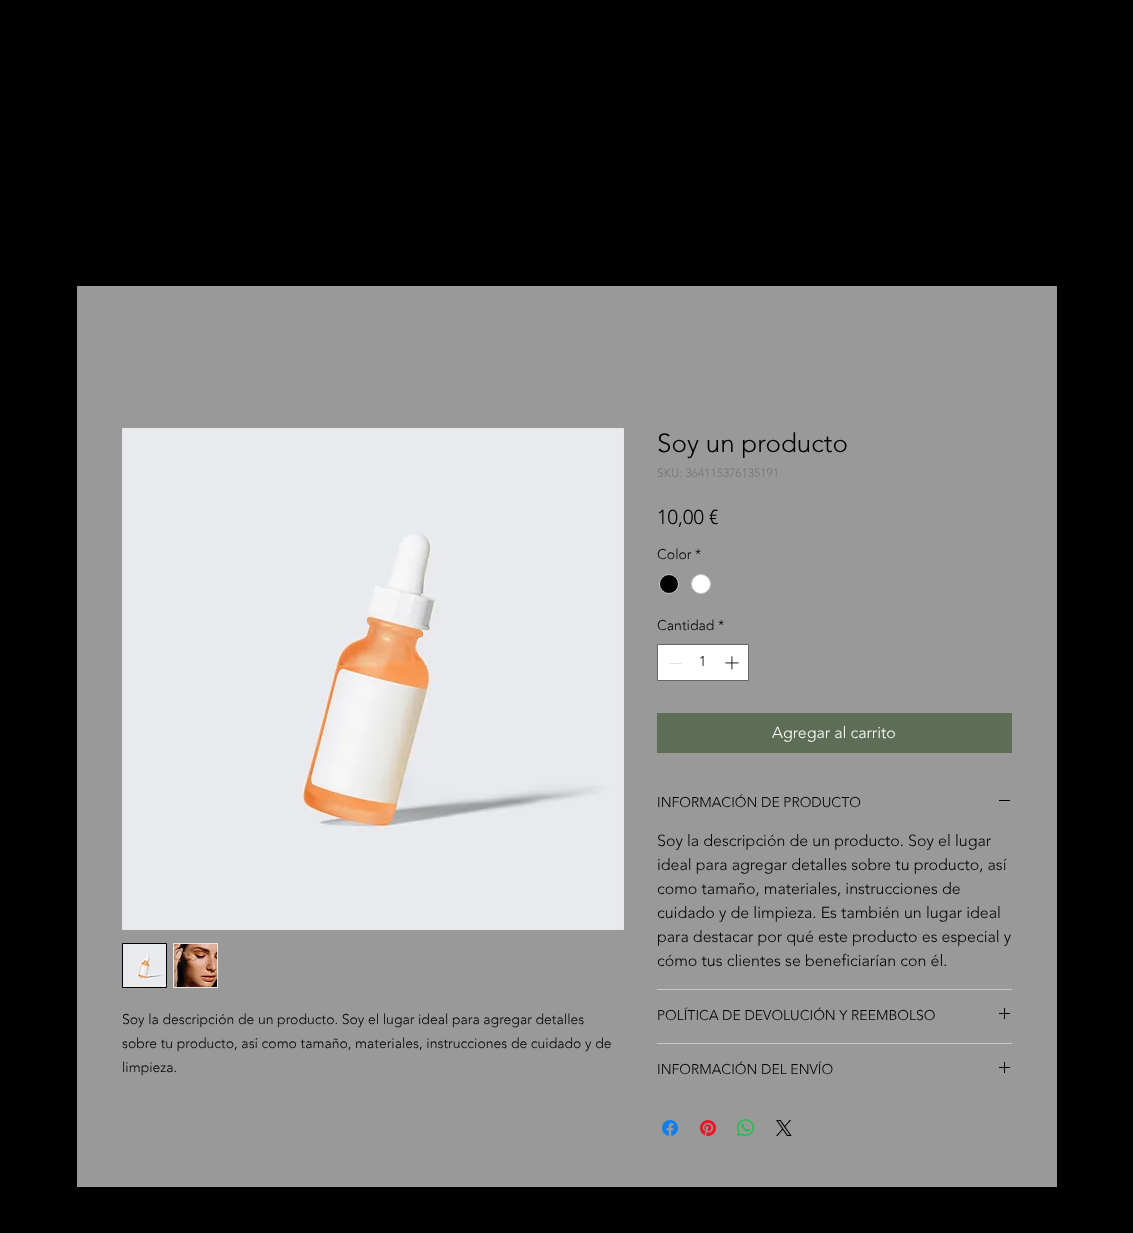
<svg xmlns="http://www.w3.org/2000/svg" width="1133" height="1233">
<style>
.a{font:300 14px 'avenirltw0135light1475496';fill:#000}
.b{font:300 26px 'avenirltw0135light1475496';fill:#000}
.c{font:300 12px 'avenirltw0135light1475496';fill:#757575}
.d{font:300 20px 'avenirltw0135light1475496';fill:#000}
.e{font:300 16px 'avenirltw0135light1475496';fill:#fff}
.f{font:300 16px 'avenirltw0135light1475496';fill:#000}
</style>
<rect width="100%" height="100%" fill="#000"/>
<path fill="#999" d="M77 286h980v901H77z"/>
<path fill="none" stroke="#e8e6e6" d="M122.5 428.5h501v501H122.5z"/>
<image href="1.png" x="123" y="429" width="500" height="500"/>
<path fill="none" stroke="#000" d="M122.5 943.5h44v44H122.5z"/>
<image href="2.png" x="123" y="944" width="43" height="43"/>
<path fill="#e8e6e6" d="M173 943h45v45H173z"/>
<image href="3.png" x="174" y="944" width="43" height="43"/>
<circle fill="#000" stroke="#c9c9c9" cx="669" cy="584" r="9.5"/>
<circle fill="#fff" stroke="#c9c9c9" cx="701" cy="584" r="9.5"/>
<path fill="#fff" stroke="#666" d="M657.5 644.5h91v36H657.5z"/>
<path fill="#e3e3e3" d="M669 663h13v1H669z"/>
<image href="4.png" x="725" y="656" width="14" height="14"/>
<path fill="#5e6d55" d="M657 713h355v40H657z"/>
<path fill="#c7c7c7" d="M657 989h355v1H657z"/>
<path fill="#000" d="M999 800h11v1H999z"/>
<path fill="#c7c7c7" d="M657 1043h355v1H657z"/>
<image href="5.png" x="999" y="1008" width="11" height="11"/>
<image href="5.png" x="999" y="1062" width="11" height="11"/>
<image href="6.png" x="662" y="1120" width="16" height="16"/>
<image href="7.png" x="700" y="1120" width="16" height="16"/>
<image href="8.png" x="737" y="1119" width="17" height="17"/>
<image href="9.png" x="776" y="1120" width="16" height="16"/>
<text class="a" x="122" y="1024">Soy la descripción de un producto. Soy el lugar ideal para agregar detalles</text>
<text class="a" x="122" y="1048">sobre tu producto, así como tamaño, materiales, instrucciones de cuidado y de</text>
<text class="a" x="122" y="1072">limpieza.</text>
<text class="b" x="657" y="452">Soy un producto</text>
<text class="c" x="657" y="477">SKU: 364115376135191</text>
<text class="d" x="657" y="524">10,00 €</text>
<text class="a" x="657" y="559">Color</text>
<text class="a" x="695" y="559">*</text>
<text class="a" x="657" y="630">Cantidad</text>
<text class="a" x="718" y="630">*</text>
<text class="a" x="699" y="666">1</text>
<text class="e" x="772" y="738">Agregar al carrito</text>
<text class="a" x="657" y="807">INFORMACIÓN DE PRODUCTO</text>
<text class="f" x="657" y="846">Soy la descripción de un producto. Soy el lugar</text>
<text class="f" x="657" y="870">ideal para agregar detalles sobre tu producto, así</text>
<text class="f" x="657" y="894">como tamaño, materiales, instrucciones de</text>
<text class="f" x="657" y="918">cuidado y de limpieza. Es también un lugar ideal</text>
<text class="f" x="657" y="942">para destacar por qué este producto es especial y</text>
<text class="f" x="657" y="966">cómo tus clientes se beneficiarían con él.</text>
<text class="a" x="657" y="1020">POLÍTICA DE DEVOLUCIÓN Y REEMBOLSO</text>
<text class="a" x="657" y="1074">INFORMACIÓN DEL ENVÍO</text>
</svg>
